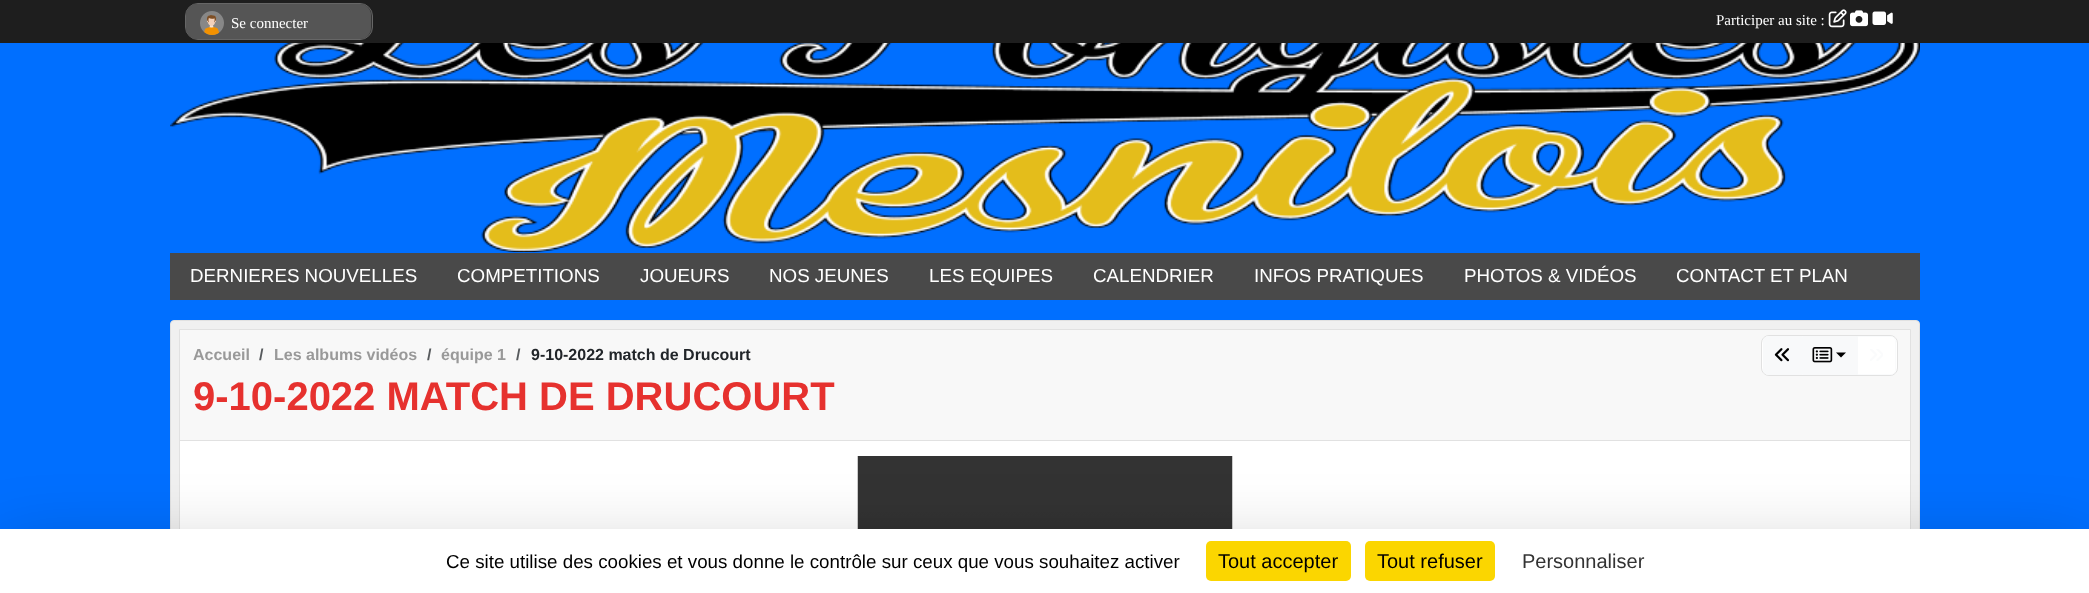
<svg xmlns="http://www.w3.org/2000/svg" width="2089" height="593">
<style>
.a{font:15px Liberation Serif;fill:#fff}
.b{font:18.75px Liberation Sans;fill:#fff}
.c{font:bold 16px Liberation Sans;fill:#999}
.d{font:bold 16px Liberation Sans;fill:#575a5d}
.e{font:bold 16px Liberation Sans;fill:#212529}
.f{font:bold 40px Liberation Sans;fill:#e6312e}
.g{font:18.75px Liberation Sans;fill:#000}
.h{font:20px Liberation Sans;fill:#000}
.i{font:20px Liberation Sans;fill:#333}
</style>
<rect width="100%" height="100%" fill="#006fff"/>
<path fill="#1e1e1e" d="M0 0h2089v43H0z"/>
<rect fill="#333" stroke="#666" x="185.5" y="3.5" width="187" height="36" rx="12.5"/>
<rect fill="#555" x="186" y="4" width="185" height="35" rx="11"/>
<image href="1.png" x="200" y="11" width="24" height="24"/>
<image href="2.png" x="1828" y="9" width="19" height="19"/>
<image href="3.png" x="1850" y="10" width="18" height="17"/>
<image href="4.png" x="1872" y="11" width="21" height="14"/>
<image href="5.png" x="170" y="43" width="1750" height="210"/>
<path fill="#494949" d="M170 253h1750v47H170z"/>
<rect fill="#f0f0f0" stroke="#e1e1e1" x="170.5" y="320.5" width="1749" height="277" rx="3.5"/>
<path fill="#fff" d="M180 441h1730v88H180z"/>
<path fill="none" stroke="#e1e1e1" d="M179.5 329.5h1731v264H179.5z"/>
<path fill="#f8f8f8" d="M180 330h1730v110H180z"/>
<path fill="#e1e1e1" d="M180 440h1730v1H180z"/>
<rect fill="#fff" stroke="#e1e1e1" x="1761.5" y="335.5" width="136" height="40" rx="7.5"/>
<path fill="#f8f9fa" stroke="#f8f9fa" d="M1768 336.5h34.5v38h-34.5c-2.5 0-4.5-2-4.5-4.5v-29c0-2.5 2-4.5 4.5-4.5z"/>
<image href="6.png" x="1774" y="348" width="15" height="14"/>
<path fill="#f8f9fa" d="M1803 336h55v39H1803z"/>
<image href="7.png" x="1812" y="347" width="21" height="16"/>
<path fill="#000" d="M1836 352.5h10l-5 5z"/>
<path fill="none" stroke="#f8f9faa6" d="M1856.5 336.5h34.5c2.5 0 4.5 2 4.5 4.5v29c0 2.5-2 4.5-4.5 4.5h-34.5z"/>
<image href="8.png" x="1870" y="349" width="13" height="12"/>
<image href="9.png" x="857" y="456" width="376" height="73"/>
<path fill="#00000040" filter="blur(37.5px)" d="M0 554h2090v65H0z"/>
<path fill="#fff" d="M0 529h2089v64H0z"/>
<rect fill="#fbd600" x="1206" y="541" width="145" height="40" rx="5"/>
<rect fill="#fbd600" x="1365" y="541" width="130" height="40" rx="5"/>
<text class="a" x="231" y="28">Se connecter</text>
<text class="a" x="1716" y="25">Participer au site :</text>
<text class="b" x="190" y="282">DERNIERES NOUVELLES</text>
<text class="b" x="457" y="282">COMPETITIONS</text>
<text class="b" x="640" y="282">JOUEURS</text>
<text class="b" x="769" y="282">NOS JEUNES</text>
<text class="b" x="929" y="282">LES EQUIPES</text>
<text class="b" x="1093" y="282">CALENDRIER</text>
<text class="b" x="1254" y="282">INFOS PRATIQUES</text>
<text class="b" x="1464" y="282">PHOTOS &amp; VIDÉOS</text>
<text class="b" x="1676" y="282">CONTACT ET PLAN</text>
<text class="c" x="193" y="360">Accueil</text>
<text class="d" x="259" y="360">/</text>
<text class="c" x="274" y="360">Les albums vidéos</text>
<text class="d" x="427" y="360">/</text>
<text class="c" x="441" y="360">équipe 1</text>
<text class="d" x="516" y="360">/</text>
<text class="e" x="531" y="360">9-10-2022 match de Drucourt</text>
<text class="f" x="193" y="410">9-10-2022 MATCH DE DRUCOURT</text>
<text class="g" x="446" y="568">Ce site utilise des cookies et vous donne le contrôle sur ceux que vous souhaitez activer</text>
<text class="h" x="1218" y="568">Tout accepter</text>
<text class="h" x="1377" y="568">Tout refuser</text>
<text class="i" x="1522" y="568">Personnaliser</text>
</svg>
